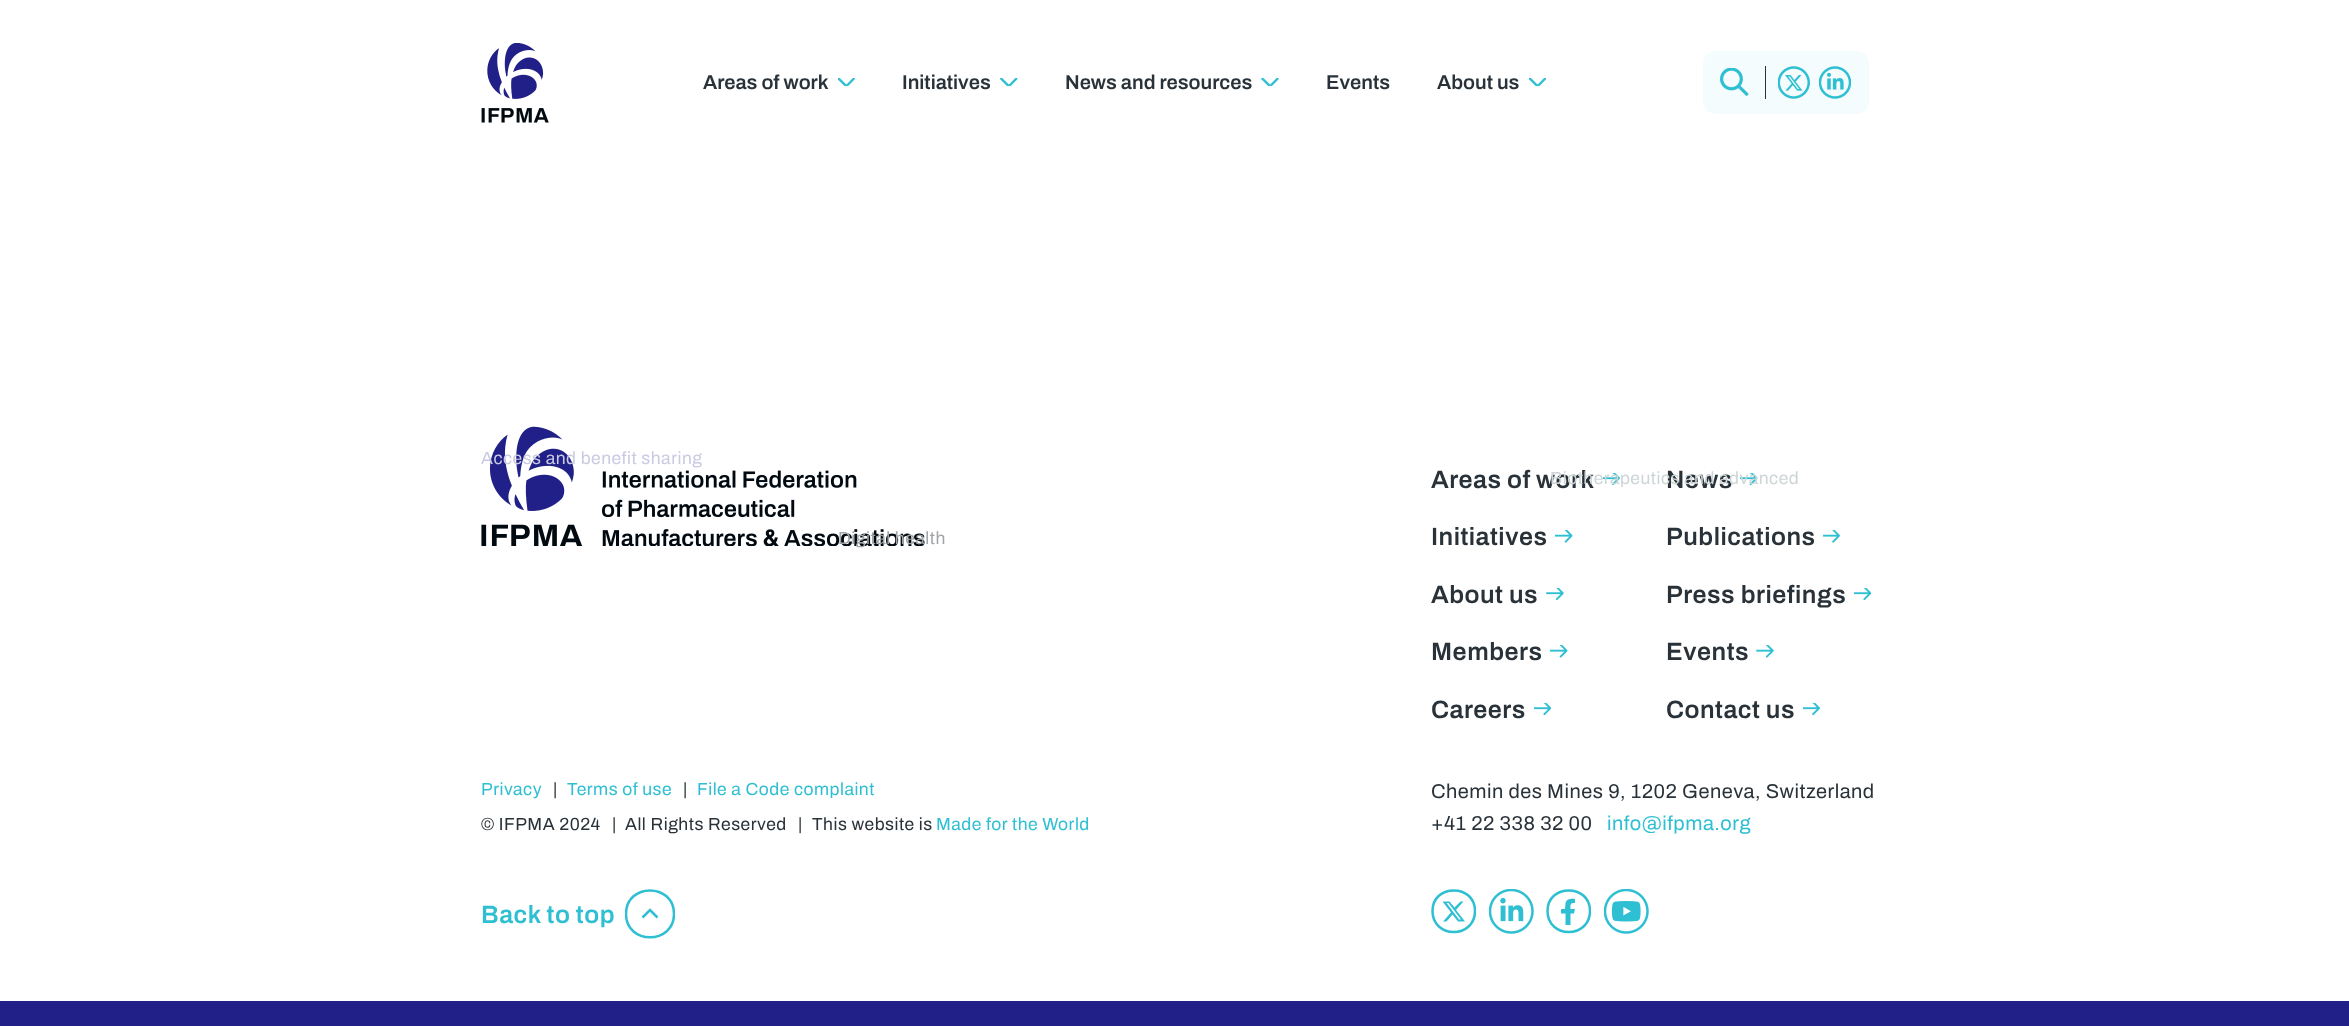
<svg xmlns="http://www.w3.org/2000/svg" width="2349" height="1026">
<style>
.a{font:600 20px 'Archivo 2';fill:#293239}
.b{font:600 17.5px Archivo;letter-spacing:0.5px;fill:#cacae3}
.c{font:600 17.5px Archivo;letter-spacing:0.5px;fill:#a2a5a7}
.d{font:600 25px 'Archivo 2';letter-spacing:0.5px;fill:#293239}
.e{font:600 17.5px Archivo;letter-spacing:0.5px;fill:#cdd5d7}
.f{font:600 17.5px Archivo;letter-spacing:0.5px;fill:#2ebfd2}
.g{font:600 17.5px Archivo;letter-spacing:0.5px;fill:#293239}
.h{font:600 20px Archivo;letter-spacing:0.5px;fill:#293239}
.i{font:600 20px Archivo;letter-spacing:0.5px;fill:#2ebfd2}
.j{font:600 25px 'Archivo 2';letter-spacing:0.5px;fill:#2ebfd2}
</style>
<defs>
<clipPath id="clip1"><path d="M625 889h50v50H625z"/></clipPath>
<clipPath id="clip2"><path d="M1431 889h45v45H1431z"/></clipPath>
<clipPath id="clip3"><path d="M1546 889h45v45H1546z"/></clipPath>
</defs>
<rect width="100%" height="100%" fill="#fff"/>
<image href="1.png" x="481" y="43" width="68" height="80"/>
<rect fill="#f4fcfd" x="1703" y="51" width="166" height="63" rx="13"/>
<image href="2.png" x="1720" y="68" width="29" height="28"/>
<path fill="#293239" d="M1765 66h1v33H1765z"/>
<image href="3.png" x="1778" y="66" width="32" height="33"/>
<image href="4.png" x="1819" y="66" width="32" height="33"/>
<image href="5.png" x="838" y="78" width="17" height="8"/>
<image href="6.png" x="1000" y="78" width="18" height="8"/>
<image href="7.png" x="1261" y="78" width="18" height="8"/>
<image href="8.png" x="1529" y="78" width="17" height="8"/>
<path fill="#212088" d="M0 1001h2349v25H0z"/>
<image href="9.png" x="481" y="426" width="444" height="120"/>
<image href="10.png" x="1603" y="473" width="17" height="13"/>
<image href="11.png" x="1740" y="473" width="18" height="13"/>
<image href="12.png" x="1555" y="530" width="18" height="13"/>
<image href="13.png" x="1823" y="530" width="17" height="13"/>
<image href="14.png" x="1546" y="588" width="18" height="13"/>
<image href="15.png" x="1854" y="588" width="17" height="13"/>
<image href="12.png" x="1550" y="645" width="18" height="13"/>
<image href="16.png" x="1756" y="645" width="18" height="13"/>
<image href="15.png" x="1534" y="703" width="17" height="13"/>
<image href="10.png" x="1803" y="703" width="17" height="13"/>
<g clip-path="url(#clip1)">
<path fill="none" stroke="#2ebfd2" stroke-width="2.5" d="M674 914c0 31-48 31-48 0c0-31.5 48-31.5 48 0z"/>
</g>
<path fill="none" stroke="#2ebfd2" stroke-width="2.5" d="M642.5 917.5l7.5-7.5l7.5 7.5"/>
<g clip-path="url(#clip2)">
<path fill="none" stroke="#2ebfd2" stroke-width="2.5" d="M1475 911c0 28-42.5 28-42.5 0c0-27.5 42.5-27.5 42.5 0z"/>
</g>
<path fill="#2ebfd2" d="M1460.5 901.5h3l-7.5 8.5l9 11.5h-7l-5.5-7l-6 7h-3.5l8-9l-8.5-11h7l5 6zm-1.5 18h2l-12.5-16.5h-2z"/>
<image href="17.png" x="1489" y="889" width="45" height="45"/>
<g clip-path="url(#clip3)">
<path fill="none" stroke="#2ebfd2" stroke-width="2.5" d="M1590 911c0 28-42.5 28-42.5 0c0-27.5 42.5-27.5 42.5 0z"/>
</g>
<path fill="#2ebfd2" d="M1574 913.5l1-4.5h-4.5c0-5-.5-6 4.5-6v-4c-4-.5-9 0-9.5 4.5l-.5 5.5h-4v4.5h4.5v11.5h5v-11.5z"/>
<image href="18.png" x="1604" y="889" width="45" height="45"/>
<text class="a" x="703" y="89">Areas of work</text>
<text class="b" x="481" y="464">Access and benefit sharing</text>
<text class="c" x="838" y="544">Digital health</text>
<text class="a" x="902" y="89">Initiatives</text>
<text class="a" x="1065" y="89">News and resources</text>
<text class="a" x="1326" y="89">Events</text>
<text class="a" x="1437" y="89">About us</text>
<text class="d" x="1431" y="488">Areas of work</text>
<text class="d" x="1666" y="488">News</text>
<text class="e" x="1550" y="484">Biotherapeutics and advanced</text>
<text class="d" x="1431" y="545">Initiatives</text>
<text class="d" x="1666" y="545">Publications</text>
<text class="d" x="1431" y="603">About us</text>
<text class="d" x="1666" y="603">Press briefings</text>
<text class="d" x="1431" y="660">Members</text>
<text class="d" x="1666" y="660">Events</text>
<text class="d" x="1431" y="718">Careers</text>
<text class="d" x="1666" y="718">Contact us</text>
<text class="f" x="481" y="795">Privacy</text>
<text class="g" x="553" y="795">|</text>
<text class="f" x="567" y="795">Terms of use</text>
<text class="g" x="683" y="795">|</text>
<text class="f" x="697" y="795">File a Code complaint</text>
<text class="g" x="481" y="830">© IFPMA 2024</text>
<text class="g" x="612" y="830">|</text>
<text class="g" x="625" y="830">All Rights Reserved</text>
<text class="g" x="798" y="830">|</text>
<text class="g" x="812" y="830">This website is</text>
<text class="f" x="936" y="830">Made for the World</text>
<text class="h" x="1431" y="798">Chemin des Mines 9, 1202 Geneva, Switzerland</text>
<text class="h" x="1431" y="830">+41 22 338 32 00</text>
<text class="i" x="1607" y="830">info@ifpma.org</text>
<text class="j" x="481" y="923">Back to top</text>
</svg>
